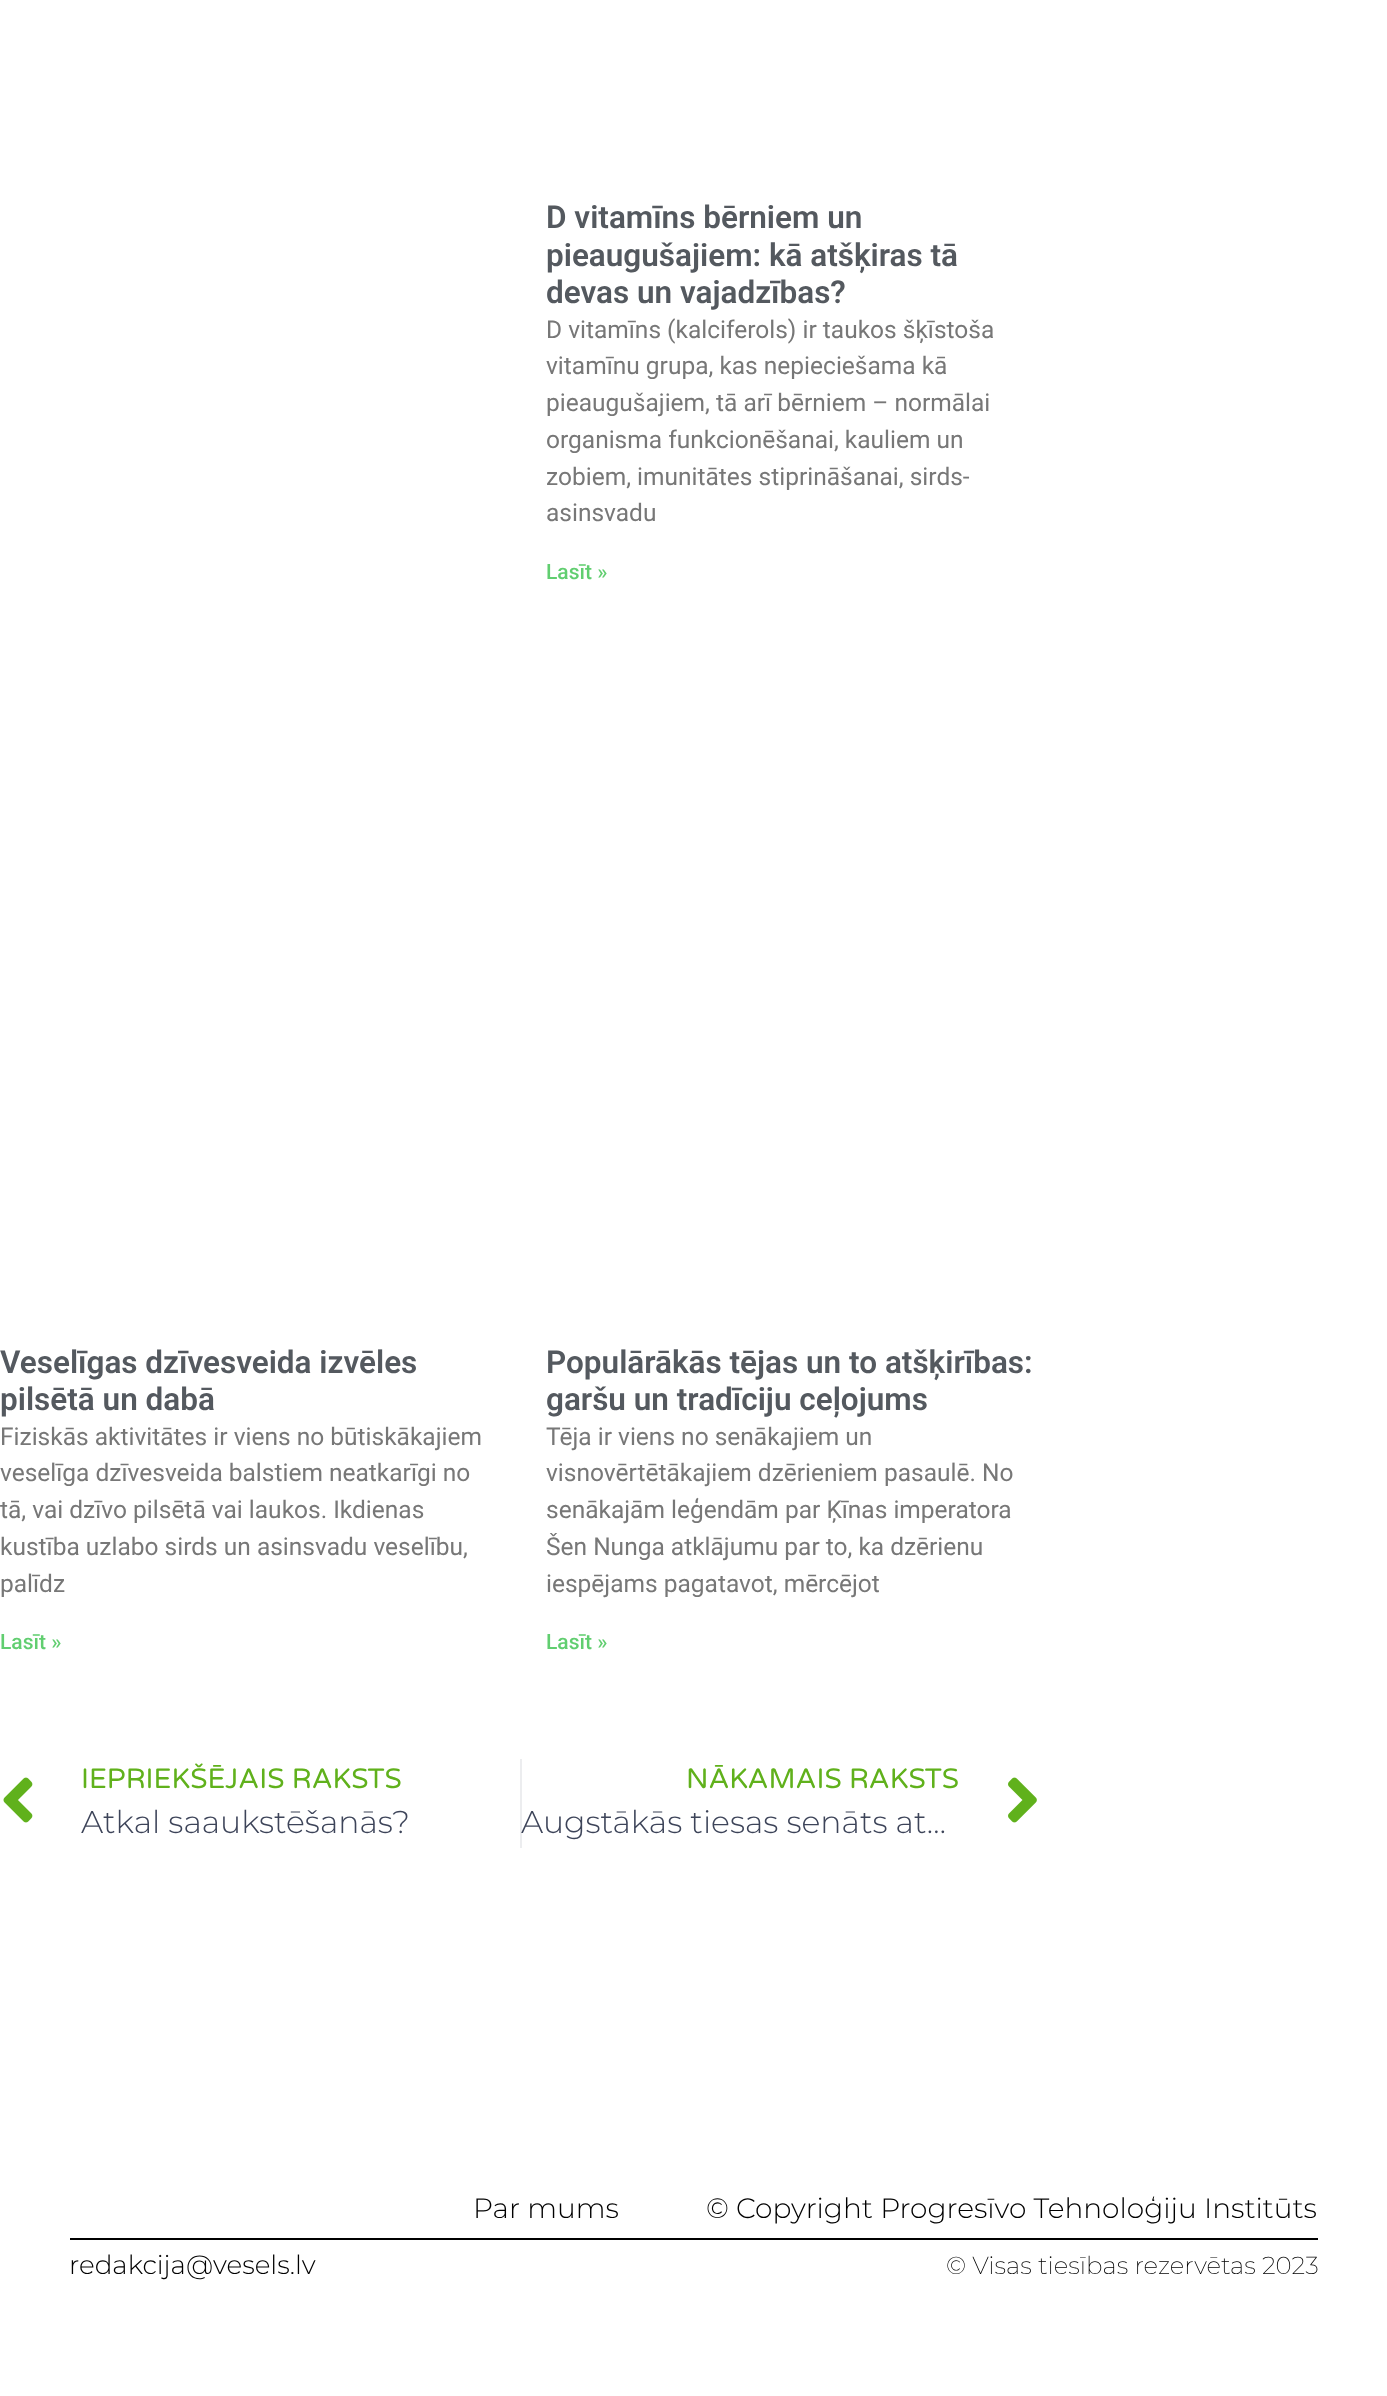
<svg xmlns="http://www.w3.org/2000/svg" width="1387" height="2396">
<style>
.a{font:600 31.5px Roboto;fill:#54595f}
.b{font:24.5px Roboto;fill:#777}
.c{font:500 21px Roboto;fill:#61ce70}
.d{font:28px Varela Round;fill:#60b11c}
.e{font:300 31.5px Montserrat;fill:#3d4459}
.f{font:300 28px Montserrat;fill:#000}
.g{font:300 26.25px Montserrat;fill:#000}
.h{font:200 24.5px Montserrat;fill:#000}
</style>
<rect width="100%" height="100%" fill="#fff"/>
<image href="1.png" x="3" y="1777" width="30" height="46"/>
<path fill="#ecedef" d="M520 1759h2v89H520z"/>
<image href="2.png" x="1008" y="1777" width="29" height="46"/>
<path fill="#000" d="M70 2238h1248v2H70z"/>
<text class="a" x="546" y="228">D vitamīns bērniem un</text>
<text class="a" x="546" y="266">pieaugušajiem: kā atšķiras tā</text>
<text class="a" x="546" y="303">devas un vajadzības?</text>
<text class="b" x="546" y="338">D vitamīns (kalciferols) ir taukos šķīstoša</text>
<text class="b" x="546" y="374">vitamīnu grupa, kas nepieciešama kā</text>
<text class="b" x="546" y="411">pieaugušajiem, tā arī bērniem – normālai</text>
<text class="b" x="546" y="448">organisma funkcionēšanai, kauliem un</text>
<text class="b" x="546" y="485">zobiem, imunitātes stiprināšanai, sirds-</text>
<text class="b" x="546" y="521">asinsvadu</text>
<text class="c" x="546" y="579">Lasīt »</text>
<text class="a" x="0" y="1373">Veselīgas dzīvesveida izvēles</text>
<text class="a" x="0" y="1410">pilsētā un dabā</text>
<text class="b" x="0" y="1445">Fiziskās aktivitātes ir viens no būtiskākajiem</text>
<text class="b" x="0" y="1481">veselīga dzīvesveida balstiem neatkarīgi no</text>
<text class="b" x="0" y="1518">tā, vai dzīvo pilsētā vai laukos. Ikdienas</text>
<text class="b" x="0" y="1555">kustība uzlabo sirds un asinsvadu veselību,</text>
<text class="b" x="0" y="1592">palīdz</text>
<text class="c" x="0" y="1649">Lasīt »</text>
<text class="a" x="546" y="1373">Populārākās tējas un to atšķirības:</text>
<text class="a" x="546" y="1410">garšu un tradīciju ceļojums</text>
<text class="b" x="546" y="1445">Tēja ir viens no senākajiem un</text>
<text class="b" x="546" y="1481">visnovērtētākajiem dzērieniem pasaulē. No</text>
<text class="b" x="546" y="1518">senākajām leģendām par Ķīnas imperatora</text>
<text class="b" x="546" y="1555">Šen Nunga atklājumu par to, ka dzērienu</text>
<text class="b" x="546" y="1592">iespējams pagatavot, mērcējot</text>
<text class="c" x="546" y="1649">Lasīt »</text>
<text class="d" x="81" y="1788">IEPRIEKŠĒJAIS RAKSTS</text>
<text class="e" x="81" y="1833">Atkal saaukstēšanās?</text>
<text class="d" x="686" y="1788">NĀKAMAIS RAKSTS</text>
<text class="e" x="521" y="1833">Augstākās tiesas senāts at…</text>
<text class="f" x="473" y="2218">Par mums</text>
<text class="f" x="706" y="2218">© Copyright Progresīvo Tehnoloģiju Institūts</text>
<text class="g" x="69" y="2274">redakcija@vesels.lv</text>
<text class="h" x="946" y="2274">© Visas tiesības rezervētas 2023</text>
</svg>
